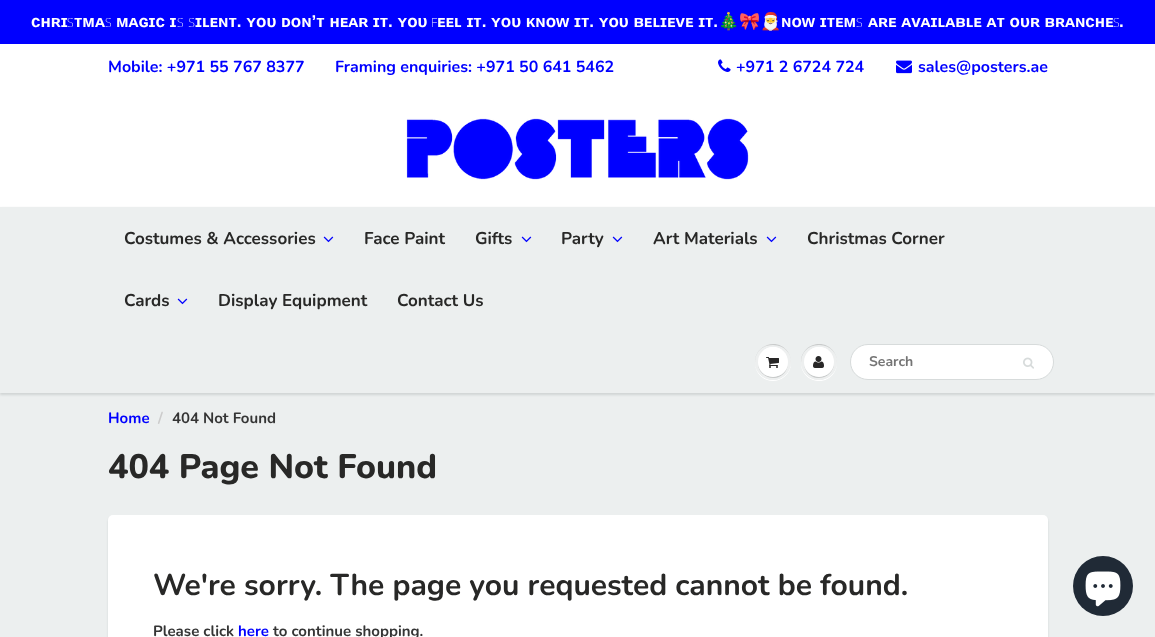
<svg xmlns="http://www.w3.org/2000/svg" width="1155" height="637">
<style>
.a{font:bold 17px Liberation Sans;fill:#fff}
.b{font:100 17px Noto Sans;fill:#fff}
.c{font:bold 17px Noto Color Emoji;fill:#fff}
.d{font:bold 16px Nunito;fill:#00f}
.e{font:bold 17px Nunito;fill:#282827}
.f{font:bold 14px Nunito;fill:#757575}
.g{font:bold 15px Nunito;fill:#00f}
.h{font:bold 15px Nunito;fill:#ccc}
.i{font:bold 15px Nunito;fill:#353535}
.j{font:800 34px Nunito;fill:#282827}
.k{font:bold 30px Nunito;fill:#282827}
</style>
<rect width="100%" height="100%" fill="#fff"/>
<path fill="#00f" d="M0 0h1155v44H0z"/>
<image href="1.png" x="718" y="59" width="13" height="13"/>
<image href="2.png" x="896" y="60" width="16" height="14"/>
<image href="3.png" x="406" y="118" width="343" height="62"/>
<path fill="#ecefef" d="M0 393h1155v244H0z"/>
<path fill="#0b191c1f" filter="blur(1px)" d="M0 208h1155v187H0z"/>
<path fill="#ecefef" d="M0 207h1155v186H0z"/>
<image href="4.png" x="323" y="236" width="11" height="7"/>
<image href="4.png" x="521" y="236" width="11" height="7"/>
<image href="4.png" x="612" y="236" width="11" height="7"/>
<image href="4.png" x="766" y="236" width="11" height="7"/>
<image href="4.png" x="177" y="298" width="11" height="7"/>
<path fill="#fff" d="M755 362.5c0 3.5 1 7.5 3 10.5c10 15 33.5 7.5 33-10.5c-.5 9.5-8 17.5-18 17.5c-10 0-17.5-8-18-17.5z"/>
<circle fill="#edefef" cx="773" cy="362" r="18"/>
<path fill="#c9cbcb" d="M773 345c12 0 18 8.5 18 17.5c0-3.5-1-7.5-3-10.5c-10-15-33.5-7.5-33 10.5c0-9 6-17.5 18-17.5z"/>
<path fill="#c9cbcb" d="M788 362.5c-.5 19-29.5 19-30 0c-.5 15 19 21.5 27.5 9c1.5-2.5 2.5-6 2.5-9z"/>
<circle fill="#fff" cx="773" cy="362" r="15"/>
<path fill="#fff" d="M773 348c10 0 15 7 15 14.5c0-3-1-6.5-2.5-9c-8.5-12.5-28-6-27.5 9c0-7.5 5-14.5 15-14.5z"/>
<image href="5.png" x="766" y="357" width="13" height="11"/>
<path fill="#fff" d="M801 362.5c-.5 18 23 25.5 33 10.5c2-3 3-7 3-10.5c-.5 9.5-8 17.5-18 17.5c-10 0-17.5-8-18-17.5z"/>
<circle fill="#edefef" cx="819" cy="362" r="18"/>
<path fill="#c9cbcb" d="M819 345c12 0 18 8.5 18 17.5c0-3.5-1-7.5-3-10.5c-10-15-33.5-7.5-33 10.5c0-9 6-17.5 18-17.5z"/>
<path fill="#c9cbcb" d="M834 362.5c-.5 19-29.5 19-30 0c0 3 1 6.5 2.5 9c8.5 12.5 28 6 27.5-9z"/>
<circle fill="#fff" cx="819" cy="362" r="15"/>
<path fill="#fff" d="M819 348c10 0 15 7 15 14.5c0-3-1-6.5-2.5-9c-8.5-12.5-28-6-27.5 9c0-7.5 5-14.5 15-14.5z"/>
<image href="6.png" x="813" y="356" width="11" height="12"/>
<rect fill="#fff" stroke="#d7dbdb" x="850.5" y="344.5" width="203" height="35" rx="17.5"/>
<image href="7.png" x="1023" y="357" width="11" height="12"/>
<rect fill="#0b191c1a" filter="blur(1px)" x="108" y="517" width="940" height="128" rx="5"/>
<rect fill="#fff" x="108" y="515" width="940" height="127" rx="5"/>
<circle fill="#202a36" cx="1103" cy="586" r="30"/>
<image href="8.png" x="1085" y="571" width="36" height="36"/>
<text class="a" x="31" y="27">ᴄʜʀɪ</text>
<text class="b" x="67" y="27">ꜱ</text>
<text class="a" x="74" y="27">ᴛᴍᴀ</text>
<text class="b" x="105" y="27">ꜱ</text>
<text class="a" x="116" y="27">ᴍᴀɢɪᴄ ɪ</text>
<text class="b" x="177" y="27">ꜱ ꜱ</text>
<text class="a" x="195" y="27">ɪʟᴇɴᴛ. ʏᴏᴜ ᴅᴏɴ’ᴛ ʜᴇᴀʀ ɪᴛ. ʏᴏᴜ</text>
<text class="b" x="431" y="27">ꜰ</text>
<text class="a" x="437" y="27">ᴇᴇʟ ɪᴛ. ʏᴏᴜ ᴋɴᴏᴡ ɪᴛ. ʏᴏᴜ ʙᴇʟɪᴇᴠᴇ ɪᴛ.</text>
<text class="c" x="718" y="27">🎄🎀🎅</text>
<text class="a" x="781" y="27">ɴᴏᴡ ɪᴛᴇᴍ</text>
<text class="b" x="856" y="27">ꜱ</text>
<text class="a" x="868" y="27">ᴀʀᴇ ᴀᴠᴀɪʟᴀʙʟᴇ ᴀᴛ ᴏᴜʀ ʙʀᴀɴᴄʜᴇ</text>
<text class="b" x="1113" y="27">ꜱ</text>
<text class="a" x="1119" y="27">.</text>
<text class="d" x="108" y="72">Mobile: +971 55 767 8377</text>
<text class="d" x="335" y="72">Framing enquiries: +971 50 641 5462</text>
<text class="d" x="736" y="72">+971 2 6724 724</text>
<text class="d" x="918" y="72">sales@posters.ae</text>
<text class="e" x="124" y="244">Costumes &amp; Accessories</text>
<text class="e" x="364" y="244">Face Paint</text>
<text class="e" x="475" y="244">Gifts</text>
<text class="e" x="561" y="244">Party</text>
<text class="e" x="653" y="244">Art Materials</text>
<text class="e" x="807" y="244">Christmas Corner</text>
<text class="e" x="124" y="306">Cards</text>
<text class="e" x="218" y="306">Display Equipment</text>
<text class="e" x="397" y="306">Contact Us</text>
<text class="f" x="869" y="366">Search</text>
<text class="g" x="108" y="423">Home</text>
<text class="h" x="158" y="423">/</text>
<text class="i" x="172" y="423">404 Not Found</text>
<text class="j" x="108" y="478">404 Page Not Found</text>
<text class="k" x="153" y="595">We're sorry. The page you requested cannot be found.</text>
<text class="i" x="153" y="636">Please click</text>
<text class="g" x="238" y="636">here</text>
<text class="i" x="273" y="636">to continue shopping.</text>
</svg>
